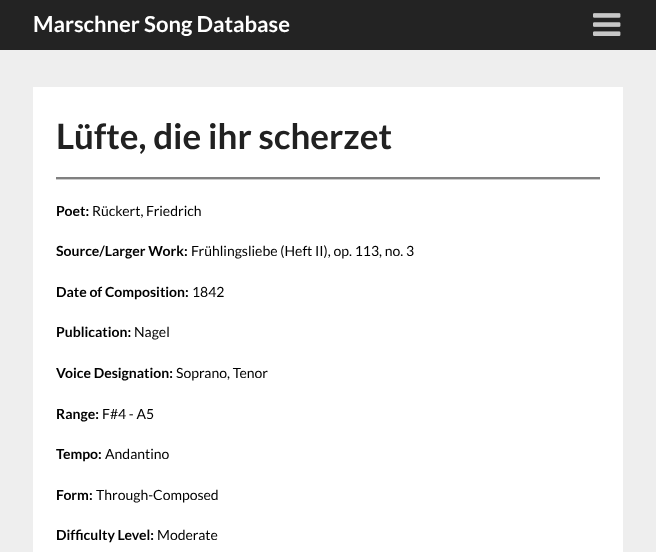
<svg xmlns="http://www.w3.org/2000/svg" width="656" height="552">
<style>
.a{font:bold 22px Lato;fill:#fff}
.b{font:bold 35px Lato;fill:#212121}
.c{font:bold 14px Lato;fill:#000}
.d{font:14px Lato;fill:#000}
</style>
<rect width="100%" height="100%" fill="#eee"/>
<path fill="#232323" d="M0 0h656v50H0z"/>
<image href="1.png" x="593" y="13" width="28" height="23"/>
<path fill="#fff" d="M33 87h590v465H33z"/>
<path fill="#ccc" d="M56 179h544v1H56z"/>
<path fill="#808080" d="M56 177h544v2H56z"/>
<text class="a" x="33" y="32">Marschner Song Database</text>
<text class="b" x="56" y="149">Lüfte, die ihr scherzet</text>
<text class="c" x="56" y="216">Poet:</text>
<text class="d" x="92" y="216">Rückert, Friedrich</text>
<text class="c" x="56" y="256">Source/Larger Work:</text>
<text class="d" x="191" y="256">Frühlingsliebe (Heft II), op. 113, no. 3</text>
<text class="c" x="56" y="297">Date of Composition:</text>
<text class="d" x="192" y="297">1842</text>
<text class="c" x="56" y="337">Publication:</text>
<text class="d" x="134" y="337">Nagel</text>
<text class="c" x="56" y="378">Voice Designation:</text>
<text class="d" x="176" y="378">Soprano, Tenor</text>
<text class="c" x="56" y="419">Range:</text>
<text class="d" x="102" y="419">F#4 - A5</text>
<text class="c" x="56" y="459">Tempo:</text>
<text class="d" x="105" y="459">Andantino</text>
<text class="c" x="56" y="500">Form:</text>
<text class="d" x="96" y="500">Through-Composed</text>
<text class="c" x="56" y="540">Difficulty Level:</text>
<text class="d" x="157" y="540">Moderate</text>
</svg>
